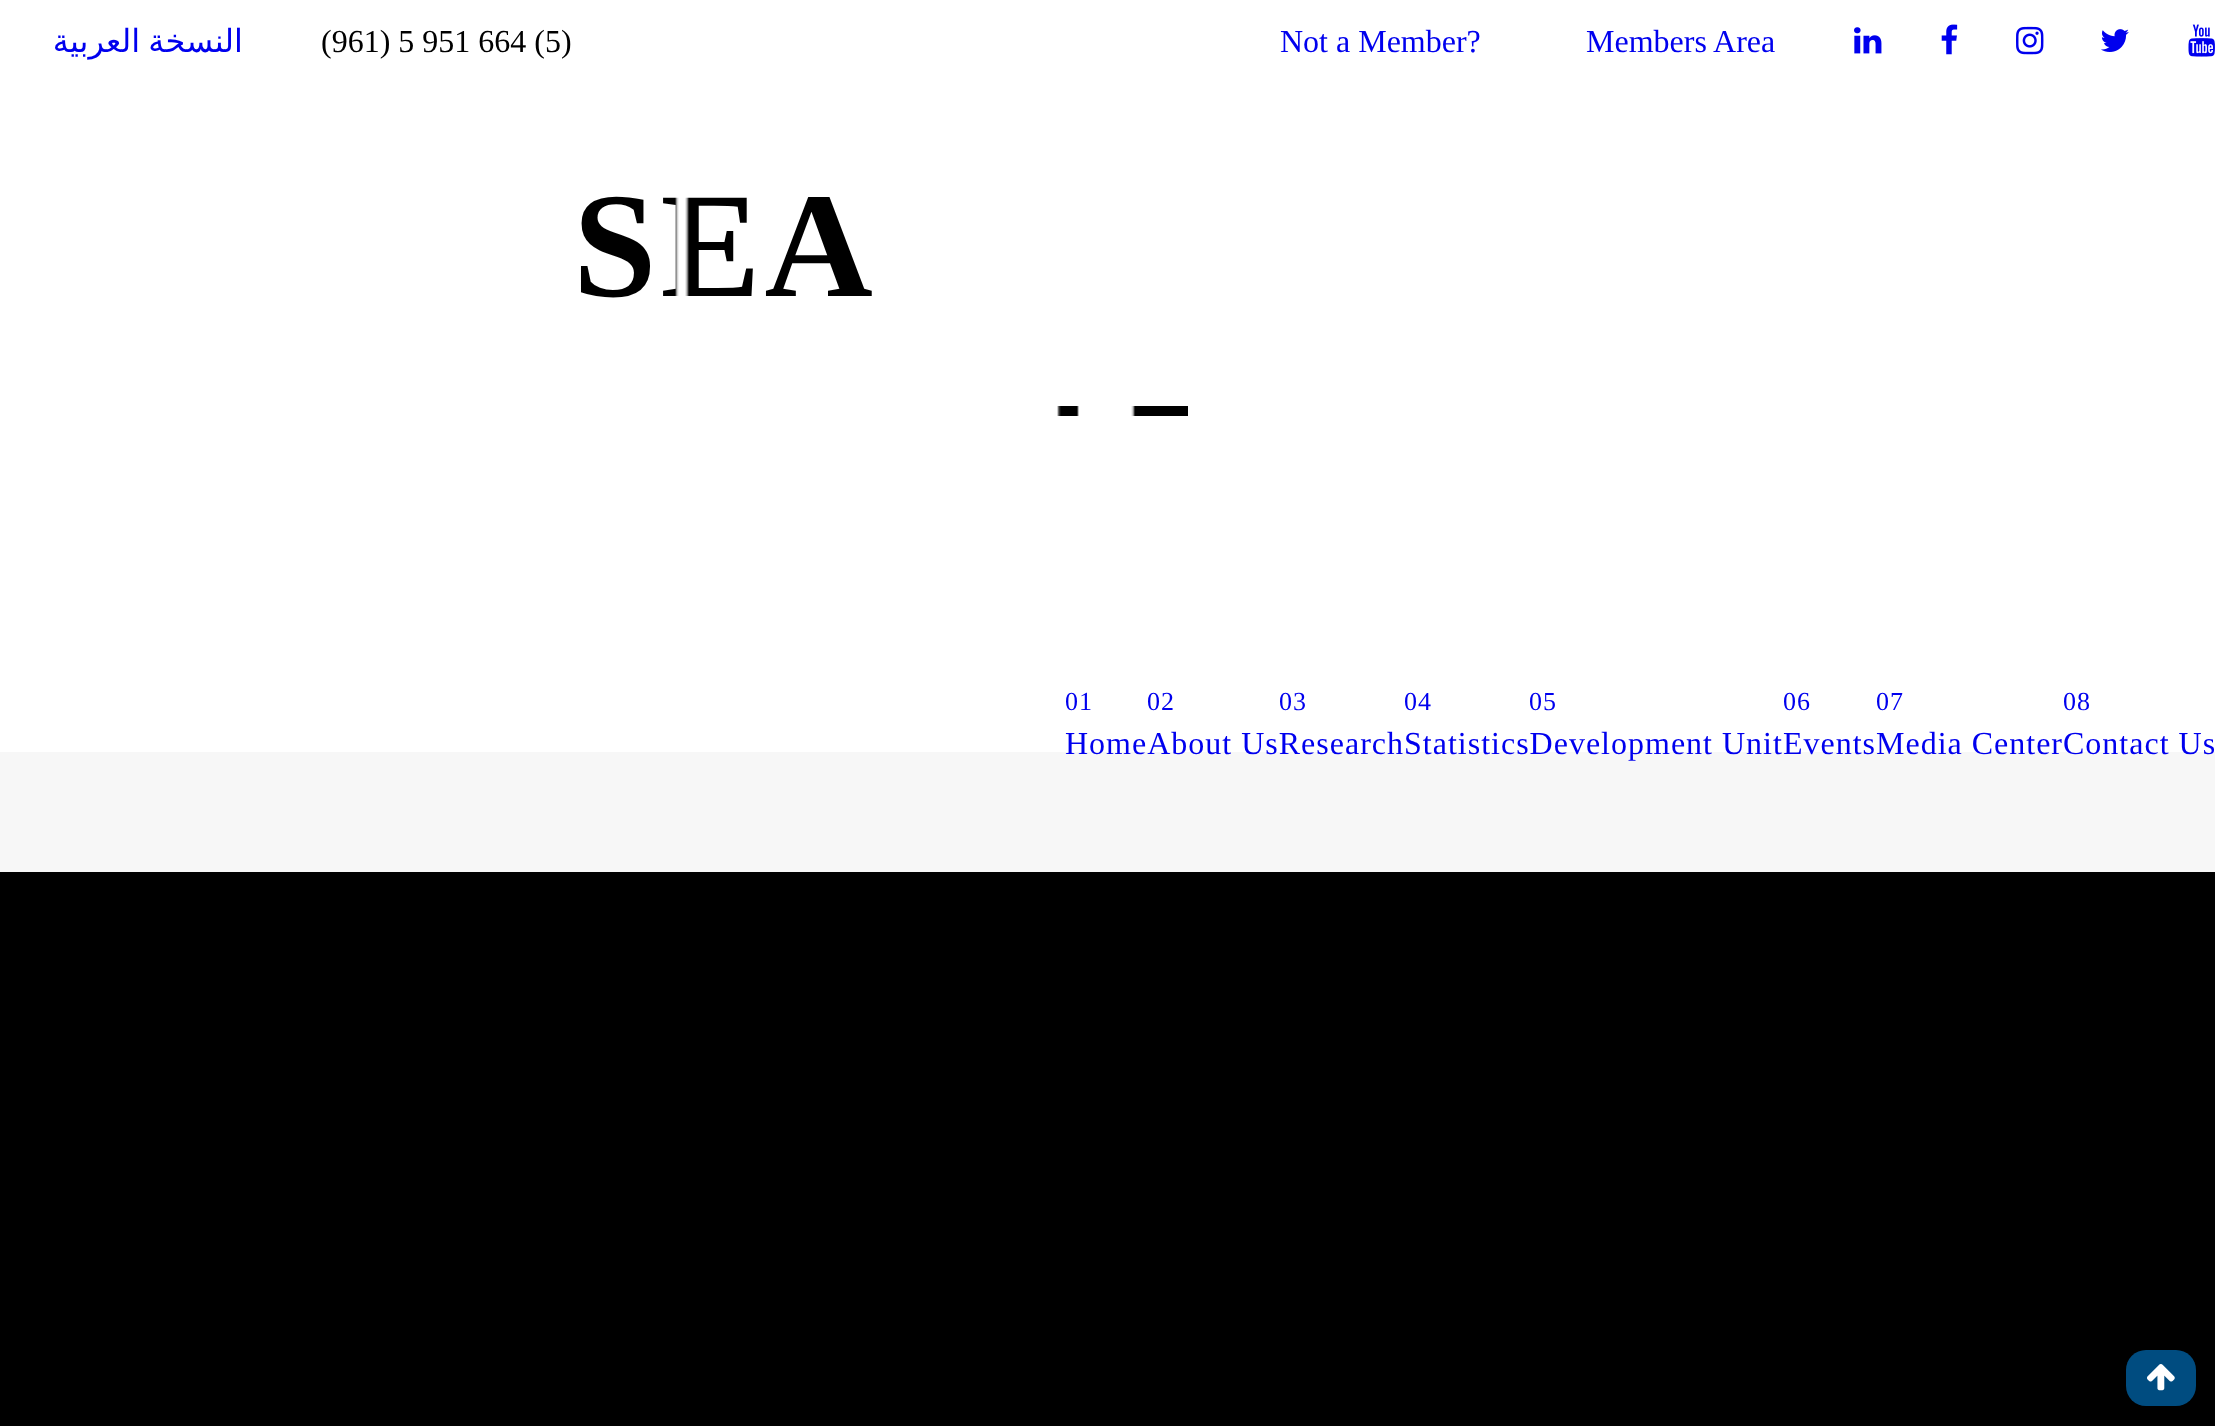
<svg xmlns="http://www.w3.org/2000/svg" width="2215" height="1426">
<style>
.a{font:32px DejaVu Sans;direction:rtl;fill:#00e}
.b{font:32px Liberation Serif;fill:#000}
.c{font:32px Liberation Serif;fill:#00e}
.d{font:26px Liberation Serif;letter-spacing:1px;fill:#00e}
.e{font:32px Liberation Serif;letter-spacing:1px;fill:#00e}
.f{font:bold 150px Liberation Serif;letter-spacing:4px;fill:#000}
</style>
<rect width="100%" height="100%" fill="#fff"/>
<image href="1.png" x="1854" y="27" width="28" height="27"/>
<image href="2.png" x="1941" y="24" width="17" height="31"/>
<image href="3.png" x="2016" y="26" width="28" height="29"/>
<image href="4.png" x="2101" y="29" width="28" height="23"/>
<image href="5.png" x="2188" y="24" width="27" height="33"/>
<path fill="#000" d="M1057 406h131v10H1057z"/>
<path fill="#f7f7f7" d="M0 752h2215v120H0z"/>
<path fill="#000" d="M0 872h2215v554H0z"/>
<rect fill="#004c80" x="2126" y="1350" width="70" height="56" rx="20"/>
<image href="7.png" x="2147" y="1364" width="28" height="27"/>
<text class="a" x="243" y="52" word-spacing="-2">النسخة العربية</text>
<text class="b" x="321" y="52">(961) 5 951 664 (5)</text>
<text class="c" x="1280" y="52">Not a Member?</text>
<text class="c" x="1586" y="52">Members Area</text>
<text class="d" x="1065" y="710">01</text>
<text class="e" x="1065" y="754">HomeAbout UsResearchStatisticsDevelopment UnitEventsMedia CenterContact Us</text>
<text class="d" x="1147" y="710">02</text>
<text class="d" x="1279" y="710">03</text>
<text class="d" x="1404" y="710">04</text>
<text class="d" x="1529" y="710">05</text>
<text class="d" x="1783" y="710">06</text>
<text class="d" x="1876" y="710">07</text>
<text class="d" x="2063" y="710">08</text>
<text class="f" x="573" y="296">SEA</text>
<image href="6.png" x="358" y="196" width="1458" height="220"/>
</svg>
